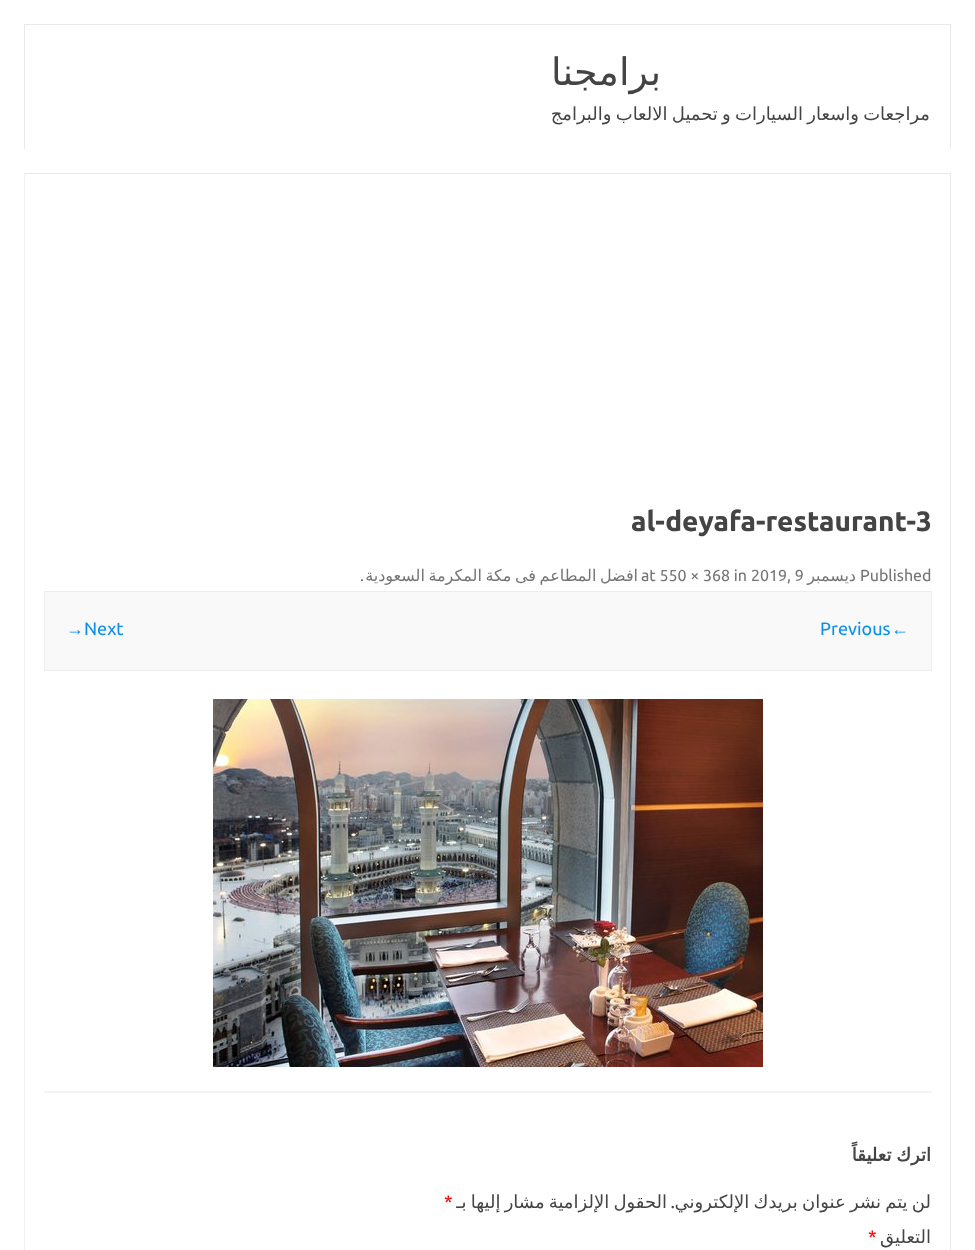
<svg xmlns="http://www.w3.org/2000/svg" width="975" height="1250">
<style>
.a{font:38px DejaVu Sans;direction:rtl;fill:#444}
.b{font:18px DejaVu Sans;direction:rtl;fill:#444}
.c{font:bold 28px Ubuntu;fill:#444}
.d{font:16px Ubuntu;fill:#757575}
.e{font:16px DejaVu Sans;direction:rtl;fill:#757575}
.f{font:18px Liberation Sans;fill:#0b91ea}
.g{font:18px Ubuntu;fill:#0b91ea}
.h{font:bold 18px DejaVu Sans;direction:rtl;fill:#444}
.i{font:18px Ubuntu;fill:#f00}
.j{font:18px Ubuntu;direction:rtl;fill:#444}
</style>
<rect width="100%" height="100%" fill="#fff"/>
<path fill="#e9e9e9" d="M24 24h927v1H24z"/>
<path fill="#e9e9e9" d="M950 24h1v125H950z"/>
<path fill="#e9e9e9" d="M24 24h1v125H24z"/>
<path fill="none" stroke="#e9e9e9" d="M24.5 173.5h926v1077H24.5z"/>
<path fill="#f1f1f1" d="M24 174h1v1076H24z"/>
<path fill="#f3f3f3" d="M44 1091h888v2H44z"/>
<path fill="#f9f9f9" stroke="#ededed" d="M44.5 591.5h887v79H44.5z"/>
<image href="1.png" x="213" y="699" width="550" height="368"/>
<text class="a" x="661" y="85">برامجنا</text>
<text class="b" x="930" y="120" word-spacing="-1.5">مراجعات واسعار السيارات و تحميل الالعاب والبرامج</text>
<text class="c" x="631" y="531">al-deyafa-restaurant-3</text>
<text class="d" x="860" y="581">Published</text>
<text class="e" x="856" y="581">ديسمبر</text>
<text class="d" x="751" y="581">2019, 9</text>
<text class="d" x="641" y="581">at 550 × 368 in</text>
<text class="e" x="638" y="581" word-spacing="-1.5">افضل المطاعم فى مكة المكرمة السعودية</text>
<text class="d" x="360" y="581">.</text>
<text class="f" x="891" y="635">←</text>
<text class="g" x="820" y="635">Previous</text>
<text class="g" x="84" y="635">Next</text>
<text class="f" x="66" y="635">→</text>
<text class="h" x="931" y="1161" word-spacing="-1">اترك تعليقاً</text>
<text class="b" x="931" y="1208" word-spacing="-1.5">لن يتم نشر عنوان بريدك الإلكتروني</text>
<text class="b" x="667" y="1208" word-spacing="-1.5">الحقول الإلزامية مشار إليها بـ</text>
<text class="i" x="444" y="1208">*</text>
<text class="j" x="675" y="1208">.</text>
<text class="b" x="931" y="1243">التعليق</text>
<text class="i" x="868" y="1243">*</text>
</svg>
